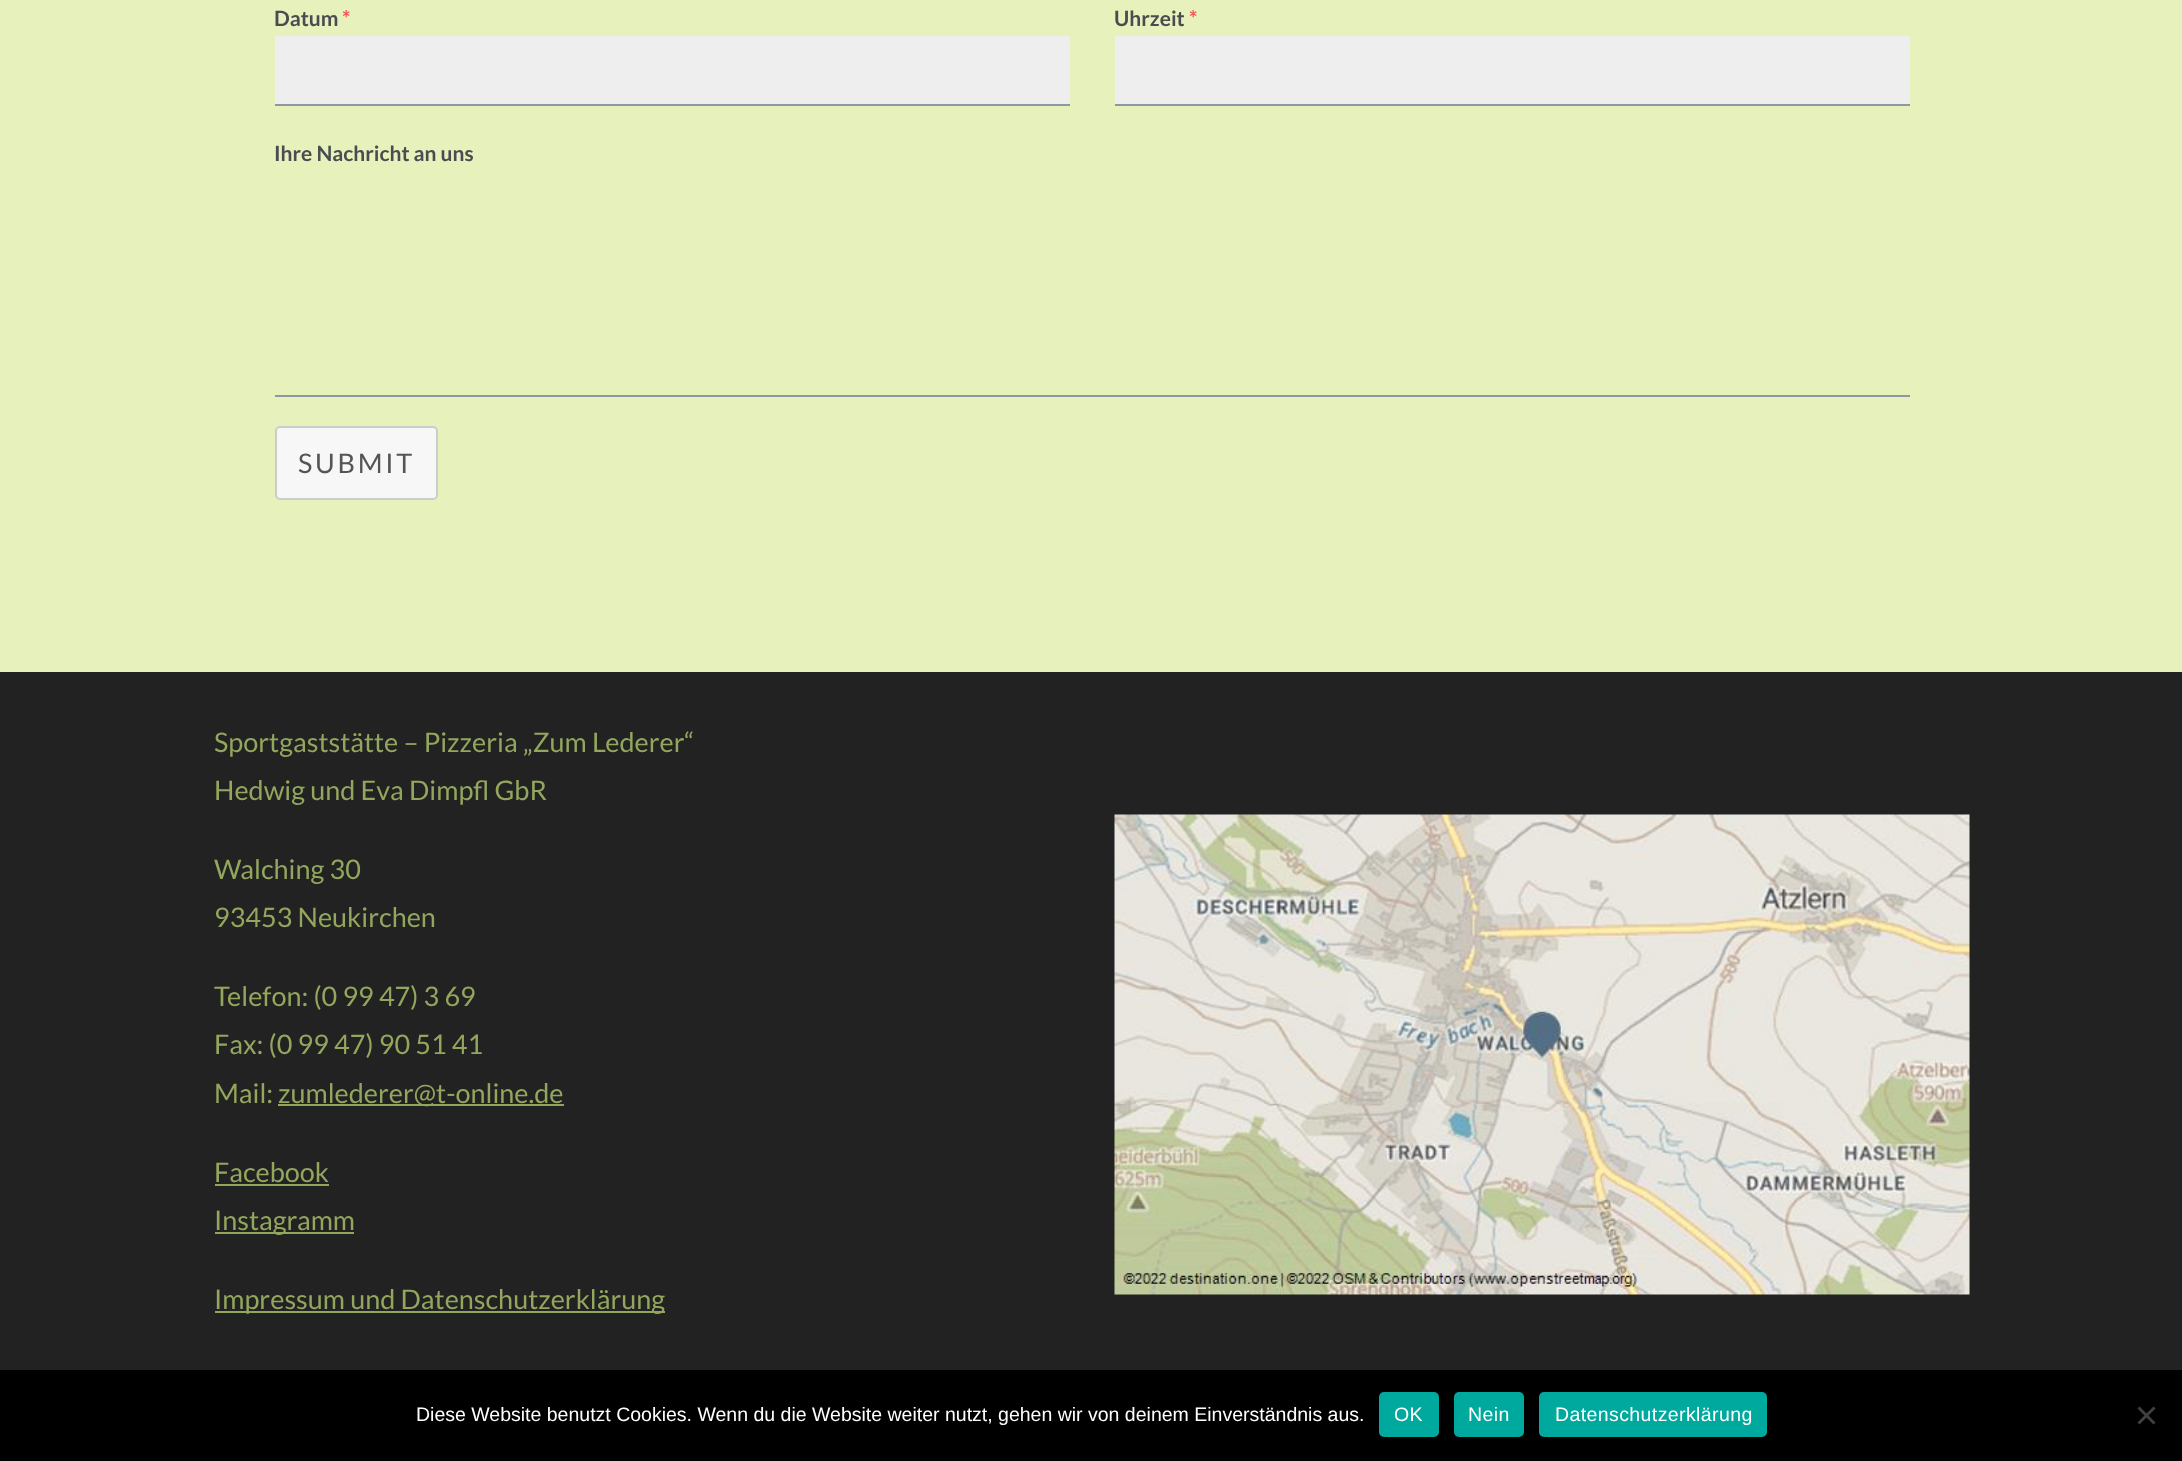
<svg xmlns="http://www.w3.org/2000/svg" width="2182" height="1461">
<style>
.a{font:bold 21px Lato;fill:#494d50}
.b{font:bold 21px Lato;fill:#fa5252}
.c{font:27px Lato;letter-spacing:2.75px;fill:#555}
.d{font:27px Lato;fill:#92a65e}
.e{font:19.5px Liberation Sans;fill:#fff}
.f{font:19.5px Liberation Sans;letter-spacing:0.4px;fill:#fff}
</style>
<rect width="100%" height="100%" fill="#e6f1bc"/>
<path fill="#eee" d="M275 36h795v68H275z"/>
<path fill="#8e98a2" d="M275 104h795v2H275z"/>
<path fill="#eee" d="M1115 36h795v68H1115z"/>
<path fill="#8e98a2" d="M1115 104h795v2H1115z"/>
<path fill="#8e98a2" d="M275 395h1635v2H275z"/>
<rect fill="#f7f7f7" stroke="#ccc" stroke-width="2" x="276" y="427" width="161" height="72" rx="4"/>
<path fill="#222" d="M0 672h2182v698H0z"/>
<path fill="#92a65e" d="M278 1104h286v2H278z"/>
<path fill="#92a65e" d="M215 1184h114v2H215z"/>
<path fill="#92a65e" d="M215 1232h139v2H215z"/>
<path fill="#92a65e" d="M215 1311h450v2H215z"/>
<image href="1.png" x="1114" y="814" width="856" height="481"/>
<path fill="#000" d="M0 1370h2182v91H0z"/>
<rect fill="#00a99d" x="1379" y="1392" width="60" height="45" rx="5"/>
<rect fill="#00a99d" x="1454" y="1392" width="70" height="45" rx="5"/>
<rect fill="#00a99d" x="1539" y="1392" width="228" height="45" rx="5"/>
<path fill="#404040" d="M2153.5 1406.5l2 2l-16 16l-2-2z"/>
<path fill="#404040" d="M2137.5 1408.5l2-2l16 16l-2 2z"/>
<text class="a" x="274" y="26">Datum</text>
<text class="b" x="342" y="26">*</text>
<text class="a" x="1114" y="26">Uhrzeit</text>
<text class="b" x="1189" y="26">*</text>
<text class="a" x="274" y="161">Ihre Nachricht an uns</text>
<text class="c" x="298" y="473">SUBMIT</text>
<text class="d" x="214" y="752">Sportgaststätte – Pizzeria „Zum Lederer“</text>
<text class="d" x="214" y="800">Hedwig und Eva Dimpfl GbR</text>
<text class="d" x="214" y="879">Walching 30</text>
<text class="d" x="214" y="927">93453 Neukirchen</text>
<text class="d" x="214" y="1006">Telefon: (0 99 47) 3 69</text>
<text class="d" x="214" y="1054">Fax: (0 99 47) 90 51 41</text>
<text class="d" x="214" y="1103">Mail:</text>
<text class="d" x="278" y="1103">zumlederer@t-online.de</text>
<text class="d" x="214" y="1182">Facebook</text>
<text class="d" x="214" y="1230">Instagramm</text>
<text class="d" x="214" y="1309">Impressum und Datenschutzerklärung</text>
<text class="e" x="416" y="1421">Diese Website benutzt Cookies. Wenn du die Website weiter nutzt, gehen wir von deinem Einverständnis aus.</text>
<text class="f" x="1394" y="1421">OK</text>
<text class="f" x="1468" y="1421">Nein</text>
<text class="f" x="1555" y="1421">Datenschutzerklärung</text>
</svg>
